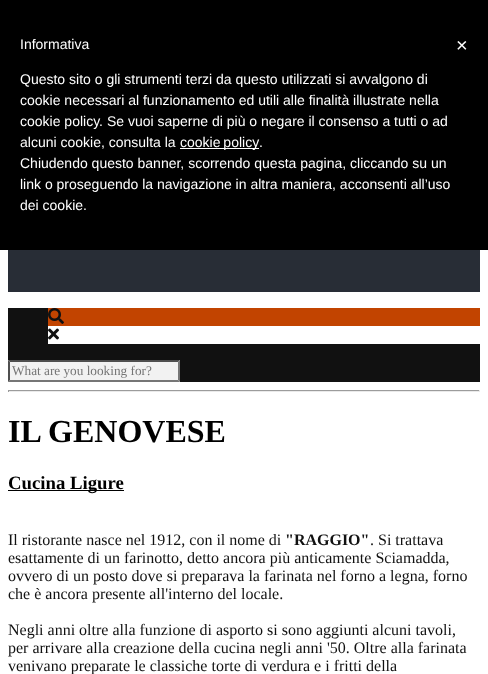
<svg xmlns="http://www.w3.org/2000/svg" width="488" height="674">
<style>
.a{font:14px Liberation Sans;fill:#fff}
.b{font:20px Liberation Sans;fill:#fff}
.c{font:13.25px Liberation Serif;fill:#757575}
.d{font:bold 32px Liberation Serif;fill:#000}
.e{font:bold 18.75px Liberation Serif;fill:#000}
.f{font:16px Liberation Serif;fill:#111}
.g{font:bold 16px Liberation Serif;fill:#111}
</style>
<rect width="100%" height="100%" fill="#fff"/>
<path fill="#000" d="M0 0h488v250H0z"/>
<path fill="#fff" d="M180 148h79v1H180z"/>
<path fill="#282d36" d="M8 250h472v42H8z"/>
<path fill="#111" d="M8 308h472v74H8z"/>
<path fill="#c24400" d="M48 308h432v18H48z"/>
<image href="1.png" x="48" y="308" width="16" height="16"/>
<path fill="#fff" d="M48 326h432v18H48z"/>
<image href="2.png" x="48" y="328" width="11" height="12"/>
<path fill="#f2f2f2" d="M8 360h172v22H8z"/>
<path fill="#4f4f4f" d="M8 360h172l-2 2h-168z"/>
<path fill="#767676" d="M180 360v22l-2-2v-18z"/>
<path fill="#767676" d="M180 382h-172l2-2h168z"/>
<path fill="#4f4f4f" d="M8 382v-22l2 2v18z"/>
<path fill="#9c9c9c" d="M8 390h472v1H8z"/>
<path fill="#eaeaea" d="M479 390h1v2H479z"/>
<path fill="#eaeaea" d="M8 391h472v1H8z"/>
<path fill="#9c9c9c" d="M8 390h1v2H8z"/>
<path fill="#000" d="M8 490h116v1H8z"/>
<text class="a" x="20" y="49">Informativa</text>
<text class="a" x="20" y="84">Questo sito o gli strumenti terzi da questo utilizzati si avvalgono di</text>
<text class="a" x="20" y="105">cookie necessari al funzionamento ed utili alle finalità illustrate nella</text>
<text class="a" x="20" y="126">cookie policy. Se vuoi saperne di più o negare il consenso a tutti o ad</text>
<text class="a" x="20" y="147">alcuni cookie, consulta la</text>
<text class="a" x="180" y="147" word-spacing="-1">cookie policy</text>
<text class="a" x="259" y="147">.</text>
<text class="a" x="20" y="168">Chiudendo questo banner, scorrendo questa pagina, cliccando su un</text>
<text class="a" x="20" y="189">link o proseguendo la navigazione in altra maniera, acconsenti all’uso</text>
<text class="a" x="20" y="210">dei cookie.</text>
<text class="b" x="456" y="52">×</text>
<text class="c" x="12" y="375">What are you looking for?</text>
<text class="d" x="8" y="442">IL GENOVESE</text>
<text class="e" x="8" y="489">Cucina Ligure</text>
<text class="f" x="8" y="545">Il ristorante nasce nel 1912, con il nome di</text>
<text class="g" x="285" y="545">"RAGGIO"</text>
<text class="f" x="370" y="545">. Si trattava</text>
<text class="f" x="8" y="563">esattamente di un farinotto, detto ancora più anticamente Sciamadda,</text>
<text class="f" x="8" y="581">ovvero di un posto dove si preparava la farinata nel forno a legna, forno</text>
<text class="f" x="8" y="599">che è ancora presente all'interno del locale.</text>
<text class="f" x="8" y="635">Negli anni oltre alla funzione di asporto si sono aggiunti alcuni tavoli,</text>
<text class="f" x="8" y="653">per arrivare alla creazione della cucina negli anni '50. Oltre alla farinata</text>
<text class="f" x="8" y="671">venivano preparate le classiche torte di verdura e i fritti della</text>
</svg>
